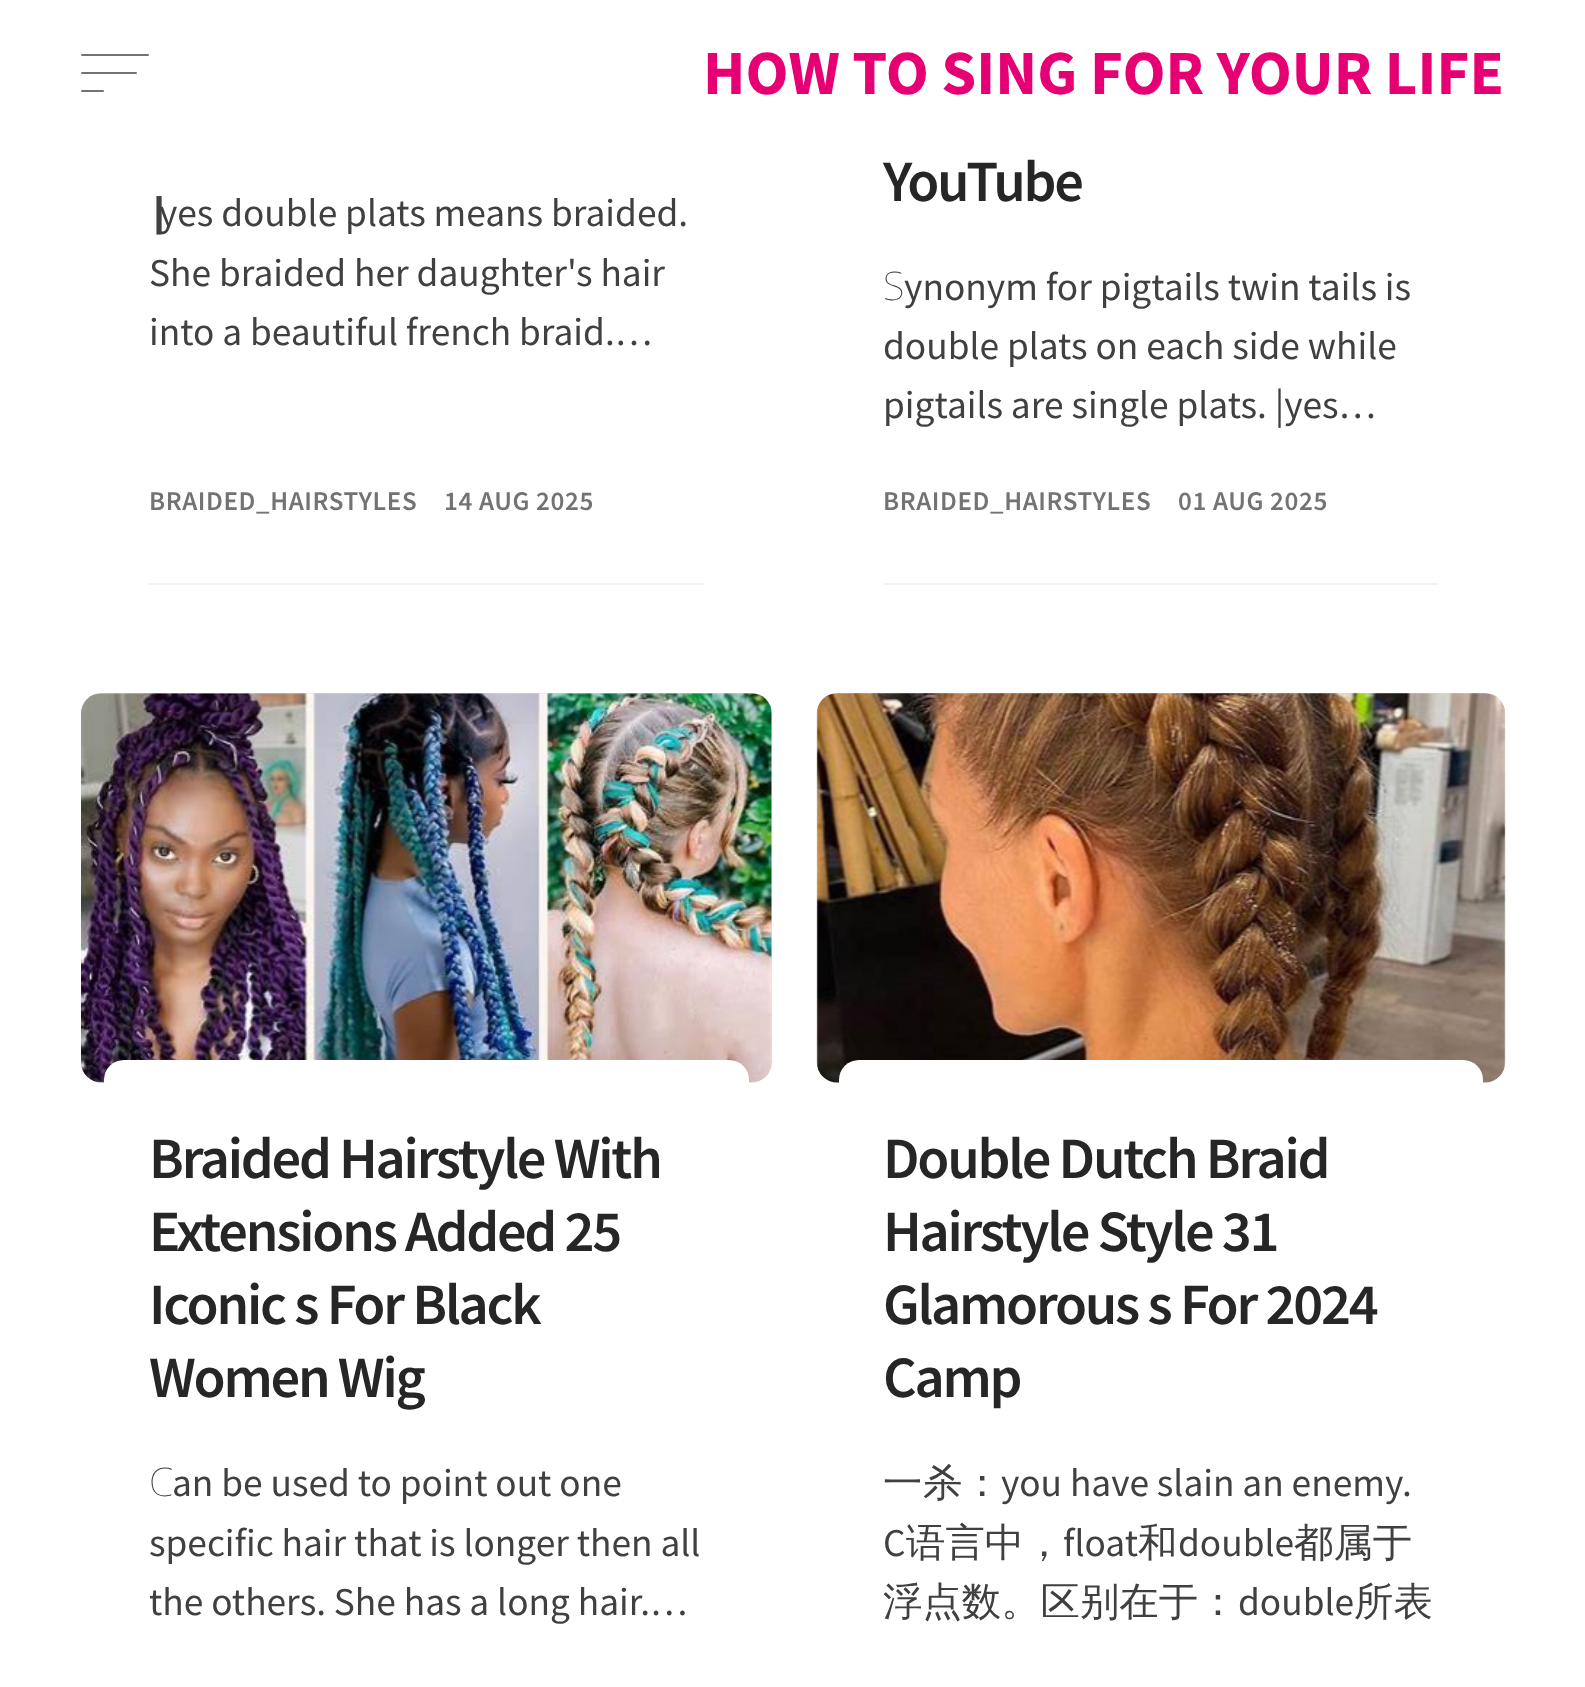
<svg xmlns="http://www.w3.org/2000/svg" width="1585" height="1687">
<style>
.a{font:bold 63px Source Sans Pro;fill:#e60073}
.b{font:900 39.4px Noto Sans;fill:#404040}
.c{font:39.4px Source Sans Pro;fill:#404040}
.d{font:600 27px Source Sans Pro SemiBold;letter-spacing:0.6px;fill:#737373}
.e{font:600 58.5px Source Sans Pro SemiBold;letter-spacing:-2.25px;fill:#262626}
.f{font:100 39.4px Noto Sans;fill:#404040}
.g{font:39.4px Noto Sans;fill:#404040}
.h{font:500 39.4px WenQuanYi Zen Hei;fill:#404040}
</style>
<rect width="100%" height="100%" fill="#fff"/>
<rect fill="#737373" x="81" y="54" width="68" height="2" rx="1"/>
<rect fill="#737373" x="81" y="72" width="56" height="2" rx="1"/>
<rect fill="#737373" x="81" y="90" width="23" height="2" rx="1"/>
<path fill="#f2f2f2" d="M149 583h555v2H149z"/>
<path fill="#f2f2f2" d="M884 583h554v2H884z"/>
<rect fill="#e1e1e1" x="81" y="693" width="691" height="389" rx="20"/>
<image href="1.png" x="81" y="693" width="691" height="390"/>
<rect fill="#fff" x="104" y="1060" width="645" height="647" rx="20"/>
<rect fill="#e1e1e1" x="817" y="693" width="688" height="389" rx="20"/>
<image href="2.png" x="816" y="693" width="690" height="390"/>
<rect fill="#fff" x="839" y="1060" width="644" height="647" rx="20"/>
<text class="a" x="703" y="94">HOW TO SING FOR YOUR LIFE</text>
<text class="b" x="149" y="226">|</text>
<text class="c" x="159" y="226">yes double plats means braided.</text>
<text class="c" x="149" y="286">She braided her daughter's hair</text>
<text class="c" x="149" y="345">into a beautiful french braid.…</text>
<text class="d" x="149" y="510">BRAIDED_HAIRSTYLES</text>
<text class="d" x="444" y="510">14 AUG 2025</text>
<text class="e" x="883" y="201">YouTube</text>
<text class="f" x="883" y="300">S</text>
<text class="c" x="904" y="300">ynonym for pigtails twin tails is</text>
<text class="c" x="883" y="359">double plats on each side while</text>
<text class="c" x="883" y="418">pigtails are single plats. |yes…</text>
<text class="d" x="883" y="510">BRAIDED_HAIRSTYLES</text>
<text class="d" x="1178" y="510">01 AUG 2025</text>
<text class="e" x="149" y="1178">Braided Hairstyle With</text>
<text class="e" x="149" y="1251">Extensions Added 25</text>
<text class="e" x="149" y="1324">Iconic s For Black</text>
<text class="e" x="149" y="1397">Women Wig</text>
<text class="f" x="149" y="1496">C</text>
<text class="c" x="172" y="1496">an be used to point out one</text>
<text class="c" x="149" y="1556">specific hair that is longer then all</text>
<text class="c" x="149" y="1615">the others. She has a long hair.…</text>
<text class="e" x="883" y="1178">Double Dutch Braid</text>
<text class="e" x="883" y="1251">Hairstyle Style 31</text>
<text class="e" x="883" y="1324">Glamorous s For 2024</text>
<text class="e" x="883" y="1397">Camp</text>
<text class="g" x="883" y="1496">一</text>
<text class="h" x="923" y="1496">杀：</text>
<text class="c" x="1001" y="1496">you have slain an enemy.</text>
<text class="c" x="883" y="1556">C</text>
<text class="h" x="906" y="1556">语言中，</text>
<text class="c" x="1063" y="1556">float</text>
<text class="h" x="1138" y="1556">和</text>
<text class="c" x="1178" y="1556">double</text>
<text class="h" x="1294" y="1556">都属于</text>
<text class="h" x="883" y="1615">浮点数。区别在于：</text>
<text class="c" x="1238" y="1615">double</text>
<text class="h" x="1354" y="1615">所表</text>
</svg>
